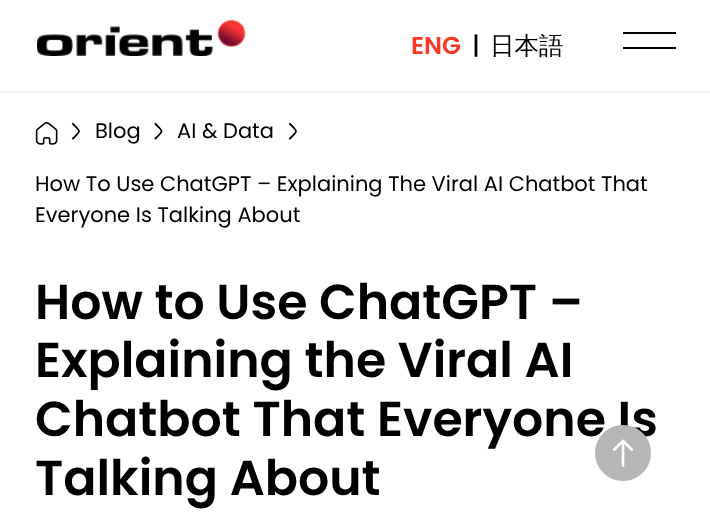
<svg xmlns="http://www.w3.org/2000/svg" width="710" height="523">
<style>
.a{font:600 24.5px Poppins;fill:#f93822}
.b{font:500 24.5px Poppins;fill:#000}
.c{font:500 24.5px WenQuanYi Zen Hei;fill:#000}
.d{font:21px Poppins;fill:#000}
.e{font:600 49px Poppins;fill:#000}
</style>
<rect width="100%" height="100%" fill="#fff"/>
<path fill="#f2f2f2" d="M0 91h710v2H0z"/>
<image href="1.png" x="37" y="19" width="209" height="37"/>
<path fill="#000" d="M623 32h53v2H623z"/>
<path fill="#000" d="M623 47h53v2H623z"/>
<image href="2.png" x="35" y="122" width="23" height="23"/>
<path fill="none" stroke="#000" stroke-width="1.8" stroke-linecap="square" stroke-linejoin="round" d="M73 124c8 8 8 6.5 0 14.5"/>
<path fill="none" stroke="#000" stroke-width="1.8" stroke-linecap="square" stroke-linejoin="round" d="M155.5 124c8 8 8 6.5 0 14.5"/>
<path fill="none" stroke="#000" stroke-width="1.8" stroke-linecap="square" stroke-linejoin="round" d="M290 124c8 8 8 6.5 0 14.5"/>
<text class="a" x="411" y="54">ENG</text>
<text class="b" x="472" y="54">|</text>
<text class="c" x="490" y="54">日本語</text>
<text class="d" x="95" y="138">Blog</text>
<text class="d" x="177" y="138">AI &amp; Data</text>
<text class="d" x="35" y="191">How To Use ChatGPT – Explaining The Viral AI Chatbot That</text>
<text class="d" x="35" y="222">Everyone Is Talking About</text>
<text class="e" x="35" y="319">How to Use ChatGPT –</text>
<text class="e" x="35" y="377">Explaining the Viral AI</text>
<text class="e" x="35" y="436">Chatbot That Everyone Is</text>
<text class="e" x="35" y="495">Talking About</text>
<image href="3.png" x="595" y="425" width="56" height="56"/>
</svg>
